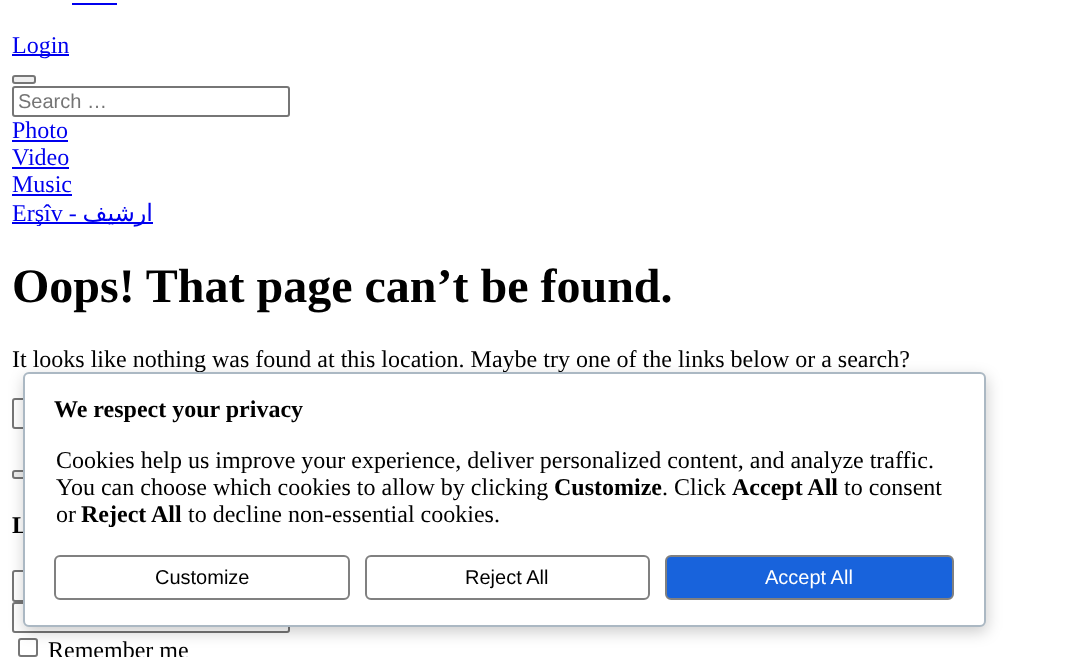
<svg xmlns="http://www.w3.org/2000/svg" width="1069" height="657">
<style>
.a{font:24px Liberation Serif;fill:#00e}
.b{font:20px Liberation Sans;fill:#757575}
.c{font:24px DejaVu Sans;direction:rtl;fill:#00e}
.d{font:bold 48px Liberation Serif;fill:#000}
.e{font:24px Liberation Serif;fill:#000}
.f{font:bold 24px Liberation Serif;fill:#000}
.g{font:20px Liberation Sans;fill:#fff}
.h{font:20px Liberation Sans;fill:#000}
</style>
<rect width="100%" height="100%" fill="#fff"/>
<path fill="#00e" d="M72 3h45v2H72z"/>
<path fill="#00e" d="M12 54h57v2H12z"/>
<rect fill="#efefef" stroke="#767676" stroke-width="2" x="13" y="76" width="22" height="7" rx="2"/>
<rect fill="none" stroke="#767676" stroke-width="2" x="13" y="87" width="276" height="29" rx="2"/>
<path fill="#00e" d="M12 140h56v2H12z"/>
<path fill="#00e" d="M12 167h57v2H12z"/>
<path fill="#00e" d="M12 194h60v2H12z"/>
<path fill="#00e" d="M12 222h141v2H12z"/>
<rect fill="none" stroke="#767676" stroke-width="2" x="13" y="399" width="276" height="29" rx="2"/>
<rect fill="#efefef" stroke="#767676" stroke-width="2" x="13" y="471" width="22" height="7" rx="2"/>
<rect fill="none" stroke="#767676" stroke-width="2" x="13" y="571" width="276" height="30" rx="2"/>
<rect fill="none" stroke="#767676" stroke-width="2" x="13" y="603" width="276" height="29" rx="2"/>
<rect fill="none" stroke="#767676" stroke-width="2" x="19" y="639" width="18" height="17" rx="2"/>
<rect fill="#00000033" filter="blur(7.5px)" x="24" y="377" width="963" height="255" rx="6"/>
<text class="a" x="12" y="53">Login</text>
<text class="b" x="18" y="108">Search …</text>
<text class="a" x="12" y="138">Photo</text>
<text class="a" x="12" y="165">Video</text>
<text class="a" x="12" y="192">Music</text>
<text class="a" x="12" y="221">Erşîv -</text>
<text class="c" x="153" y="221">ارشيف</text>
<text class="d" x="12" y="302">Oops! That page can’t be found.</text>
<text class="e" x="12" y="367">It looks like nothing was found at this location. Maybe try one of the links below or a search?</text>
<text class="f" x="12" y="533">L</text>
<rect fill="#fff" stroke="#abb8c3" stroke-width="2" x="24" y="373" width="961" height="253" rx="5"/>
<rect fill="#1863dc" stroke="#808080" stroke-width="2" x="666" y="556" width="287" height="43" rx="5"/>
<text class="g" x="765" y="584">Accept All</text>
<rect fill="none" stroke="#808080" stroke-width="2" x="366" y="556" width="283" height="43" rx="5"/>
<text class="h" x="465" y="584">Reject All</text>
<rect fill="none" stroke="#808080" stroke-width="2" x="55" y="556" width="294" height="43" rx="5"/>
<text class="h" x="155" y="584">Customize</text>
<text class="e" x="188" y="522">to decline non-essential cookies.</text>
<text class="f" x="81" y="522">Reject All</text>
<text class="e" x="56" y="522">or</text>
<text class="e" x="844" y="495">to consent</text>
<text class="f" x="732" y="495">Accept All</text>
<text class="e" x="662" y="495">. Click</text>
<text class="f" x="554" y="495">Customize</text>
<text class="e" x="56" y="495">You can choose which cookies to allow by clicking</text>
<text class="e" x="56" y="468">Cookies help us improve your experience, deliver personalized content, and analyze traffic.</text>
<text class="f" x="54" y="417">We respect your privacy</text>
<text class="e" x="48" y="658">Remember me</text>
</svg>
